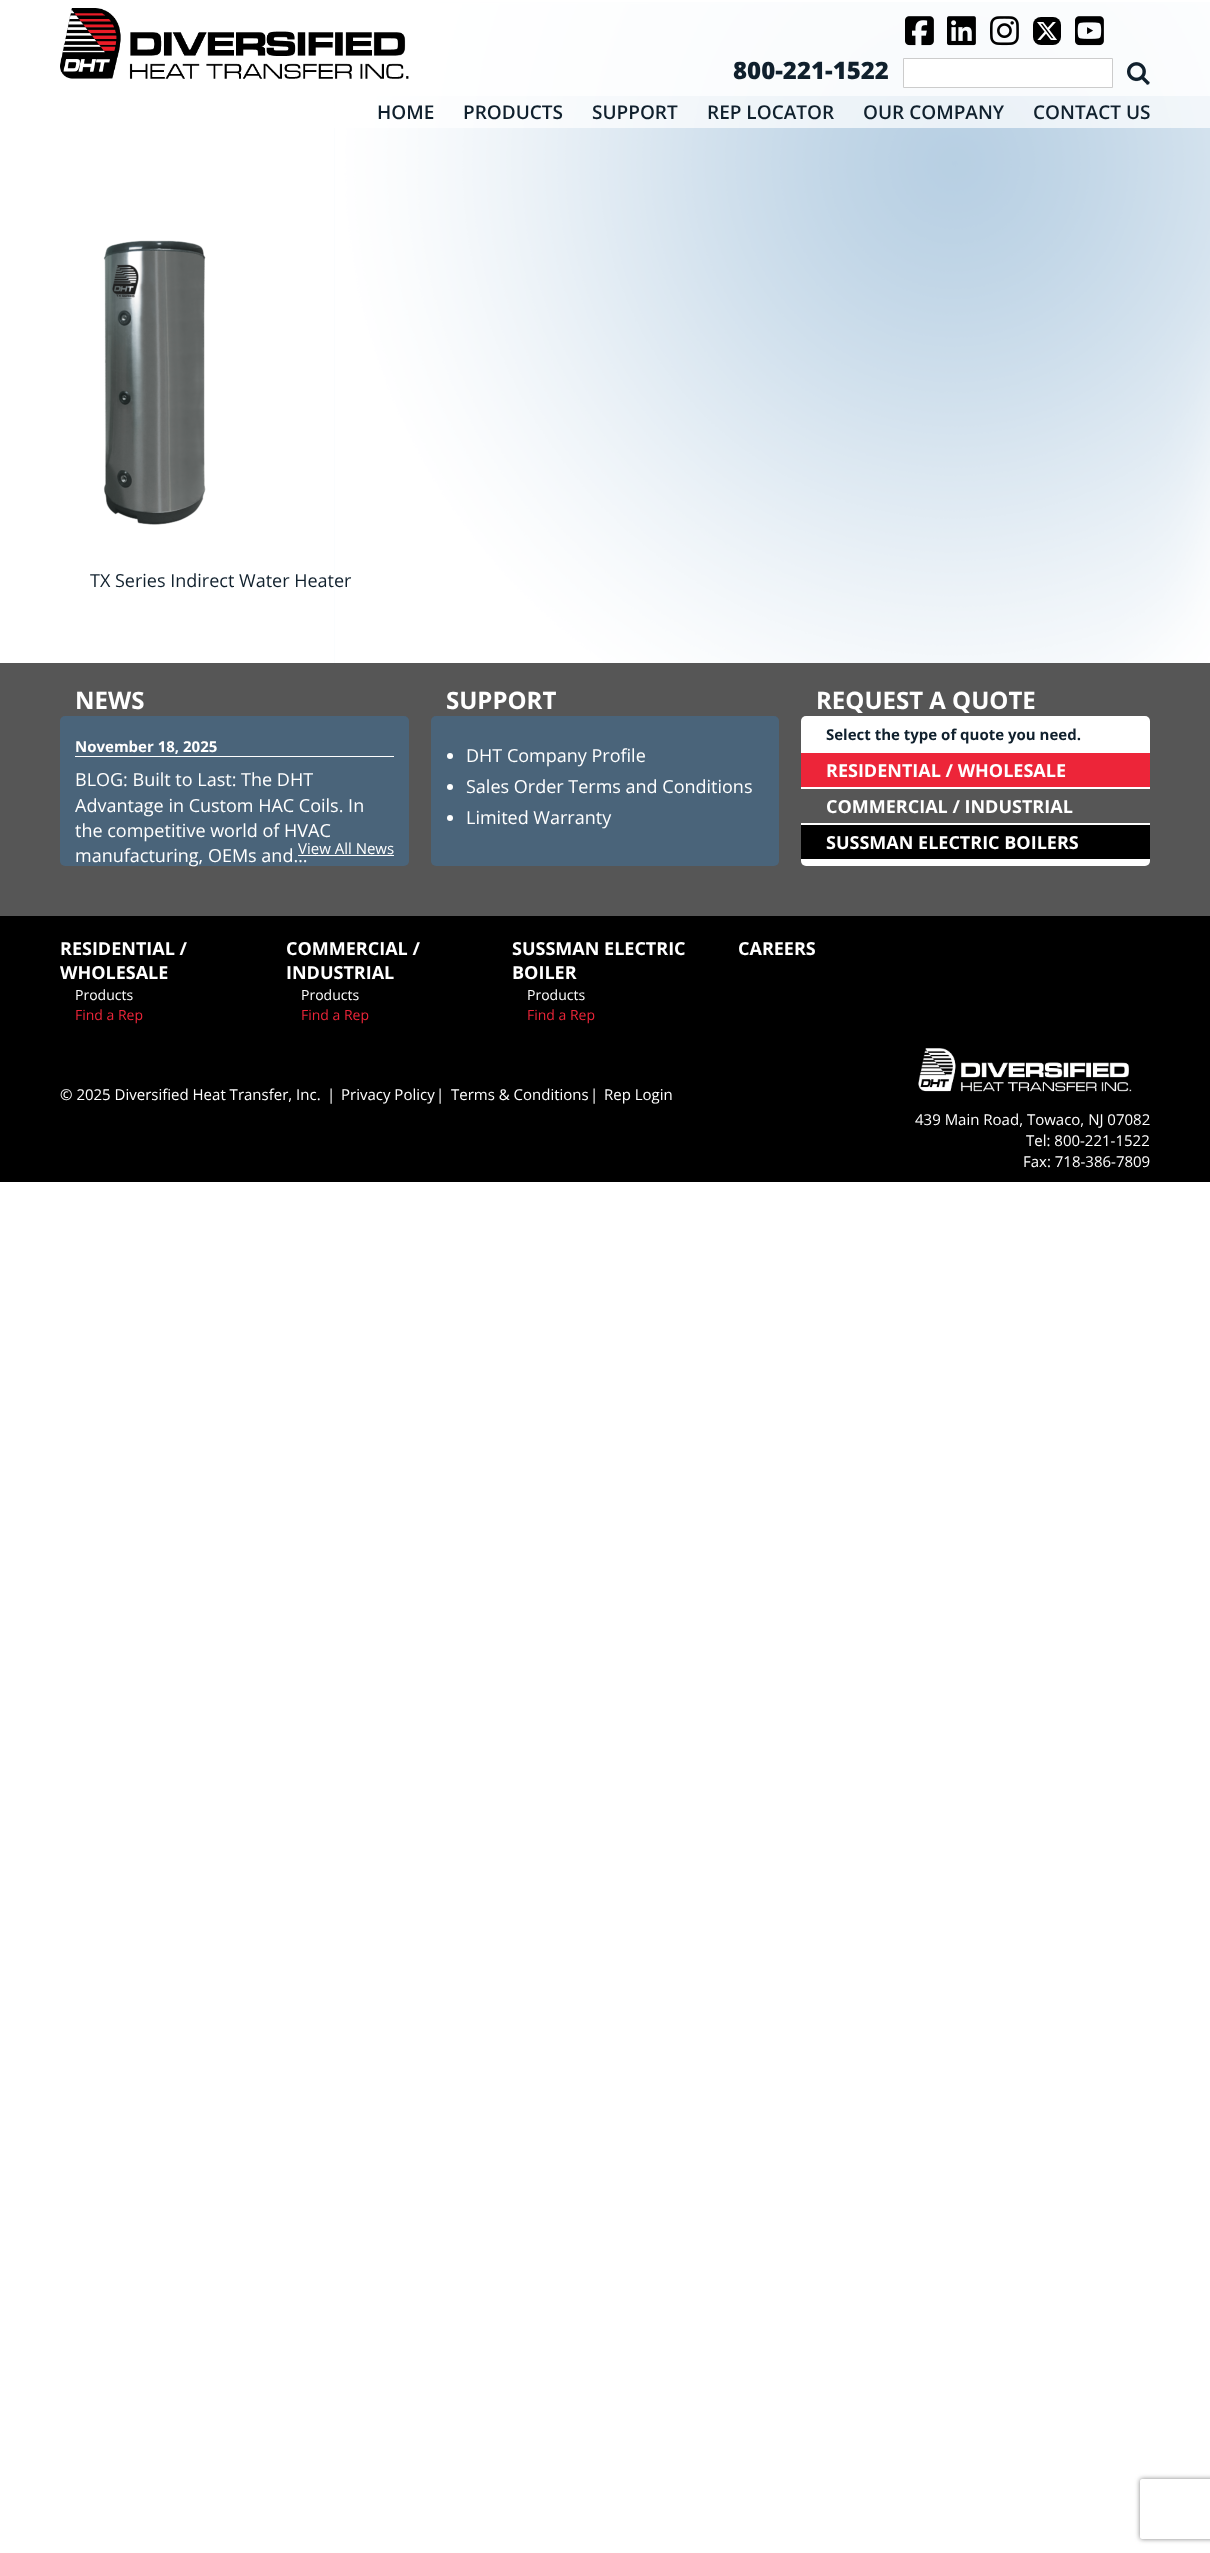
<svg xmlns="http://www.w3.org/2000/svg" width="1210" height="2553">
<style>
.a{font:800 24px Open Sans;fill:#10202d}
.b{font:600 19px Open Sans;fill:#10202d}
.c{font:18px Open Sans;fill:#10202d}
.d{font:bold 24px Open Sans;fill:#fff}
.e{font:bold 15px Open Sans;fill:#fff}
.f{font:18px Open Sans;fill:#fff}
.g{font:15px Open Sans;fill:#fff}
.h{font:bold 15px Open Sans;fill:#10202d}
.i{font:bold 18px Open Sans;fill:#fff}
.j{font:14px Open Sans;fill:#fff}
.k{font:14px Open Sans;fill:#ed2539}
</style>
<defs>
<clipPath id="clip1"><path d="M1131 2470h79v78h-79zm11 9h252c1 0 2 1 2 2v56c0 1-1 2-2 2h-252c-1 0-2-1-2-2v-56c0-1 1-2 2-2z" clip-rule="evenodd"/></clipPath>
</defs>
<rect width="100%" height="100%" fill="#fff"/>
<image href="9.png" x="334" y="2" width="876" height="661"/>
<path fill="#ffffffe6" d="M334 2h876v94H334z"/>
<image href="1.png" x="60" y="8" width="349" height="71"/>
<image href="2.png" x="905" y="16" width="29" height="30"/>
<image href="3.png" x="947" y="16" width="29" height="30"/>
<image href="4.png" x="990" y="16" width="29" height="30"/>
<rect fill="#000" x="1033" y="17" width="28" height="28" rx="8"/>
<image href="5.png" x="1037" y="22" width="20" height="18"/>
<image href="6.png" x="1075" y="16" width="29" height="30"/>
<path fill="#fff" stroke="#ccc" d="M903.5 58.5h209v29H903.5z"/>
<image href="7.png" x="1127" y="62" width="23" height="23"/>
<path fill="#ffffffb3" d="M334 96h876v32H334z"/>
<image href="8.png" x="103" y="240" width="103" height="285"/>
<path fill="#565656" d="M0 663h1210v253H0z"/>
<rect fill="#4a647a" x="60" y="716" width="349" height="150" rx="5"/>
<path fill="#fff" d="M75 756h319v1H75z"/>
<path fill="#fff" d="M298 855h96v1H298z"/>
<rect fill="#4a647a" x="431" y="716" width="348" height="150" rx="5"/>
<circle fill="#fff" cx="450" cy="756" r="3"/>
<circle fill="#fff" cx="450" cy="787" r="3"/>
<circle fill="#fff" cx="450" cy="818" r="3"/>
<rect fill="#fff" x="801" y="716" width="349" height="150" rx="5"/>
<path fill="#ed2539" d="M801 753h349v34H801z"/>
<path fill="#565656" d="M801 789h349v34H801z"/>
<path fill="#000" d="M801 825h349v34H801z"/>
<path fill="#000" d="M0 916h1210v266H0z"/>
<image href="10.png" x="918" y="1048" width="214" height="44"/>
<g clip-path="url(#clip1)">
<rect fill="#808080" filter="blur(2.5px)" x="1140" y="2479" width="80" height="60" rx="2"/>
</g>
<text class="a" x="733" y="79">800-221-1522</text>
<text class="b" x="377" y="119">HOME</text>
<text class="b" x="463" y="119">PRODUCTS</text>
<text class="b" x="592" y="119">SUPPORT</text>
<text class="b" x="707" y="119">REP LOCATOR</text>
<text class="b" x="863" y="119">OUR COMPANY</text>
<text class="b" x="1033" y="119">CONTACT US</text>
<text class="c" x="90" y="587">TX Series Indirect Water Heater</text>
<text class="d" x="75" y="709">NEWS</text>
<text class="e" x="75" y="752">November 18, 2025</text>
<text class="f" x="75" y="786">BLOG: Built to Last: The DHT</text>
<text class="f" x="75" y="812">Advantage in Custom HAC Coils. In</text>
<text class="f" x="75" y="837">the competitive world of HVAC</text>
<text class="f" x="75" y="862">manufacturing, OEMs and…</text>
<text class="g" x="298" y="854">View All News</text>
<text class="d" x="446" y="709">SUPPORT</text>
<text class="f" x="466" y="762">DHT Company Profile</text>
<text class="f" x="466" y="793">Sales Order Terms and Conditions</text>
<text class="f" x="466" y="824">Limited Warranty</text>
<text class="d" x="816" y="709">REQUEST A QUOTE</text>
<text class="h" x="826" y="740">Select the type of quote you need.</text>
<text class="i" x="826" y="777">RESIDENTIAL / WHOLESALE</text>
<text class="i" x="826" y="813">COMMERCIAL / INDUSTRIAL</text>
<text class="i" x="826" y="849">SUSSMAN ELECTRIC BOILERS</text>
<text class="i" x="60" y="955">RESIDENTIAL /</text>
<text class="i" x="60" y="979">WHOLESALE</text>
<text class="j" x="75" y="1000">Products</text>
<text class="k" x="75" y="1020">Find a Rep</text>
<text class="i" x="286" y="955">COMMERCIAL /</text>
<text class="i" x="286" y="979">INDUSTRIAL</text>
<text class="j" x="301" y="1000">Products</text>
<text class="k" x="301" y="1020">Find a Rep</text>
<text class="i" x="512" y="955">SUSSMAN ELECTRIC</text>
<text class="i" x="512" y="979">BOILER</text>
<text class="j" x="527" y="1000">Products</text>
<text class="k" x="527" y="1020">Find a Rep</text>
<text class="i" x="738" y="955">CAREERS</text>
<text class="g" x="60" y="1100">© 2025 Diversified Heat Transfer, Inc.</text>
<text class="g" x="327" y="1100">|</text>
<text class="g" x="341" y="1100">Privacy Policy</text>
<text class="g" x="436" y="1100">|</text>
<text class="g" x="451" y="1100">Terms &amp; Conditions</text>
<text class="g" x="590" y="1100">|</text>
<text class="g" x="604" y="1100">Rep Login</text>
<text class="g" x="915" y="1125">439 Main Road, Towaco, NJ 07082</text>
<text class="g" x="1026" y="1146">Tel: 800-221-1522</text>
<text class="g" x="1023" y="1167">Fax: 718-386-7809</text>
</svg>
